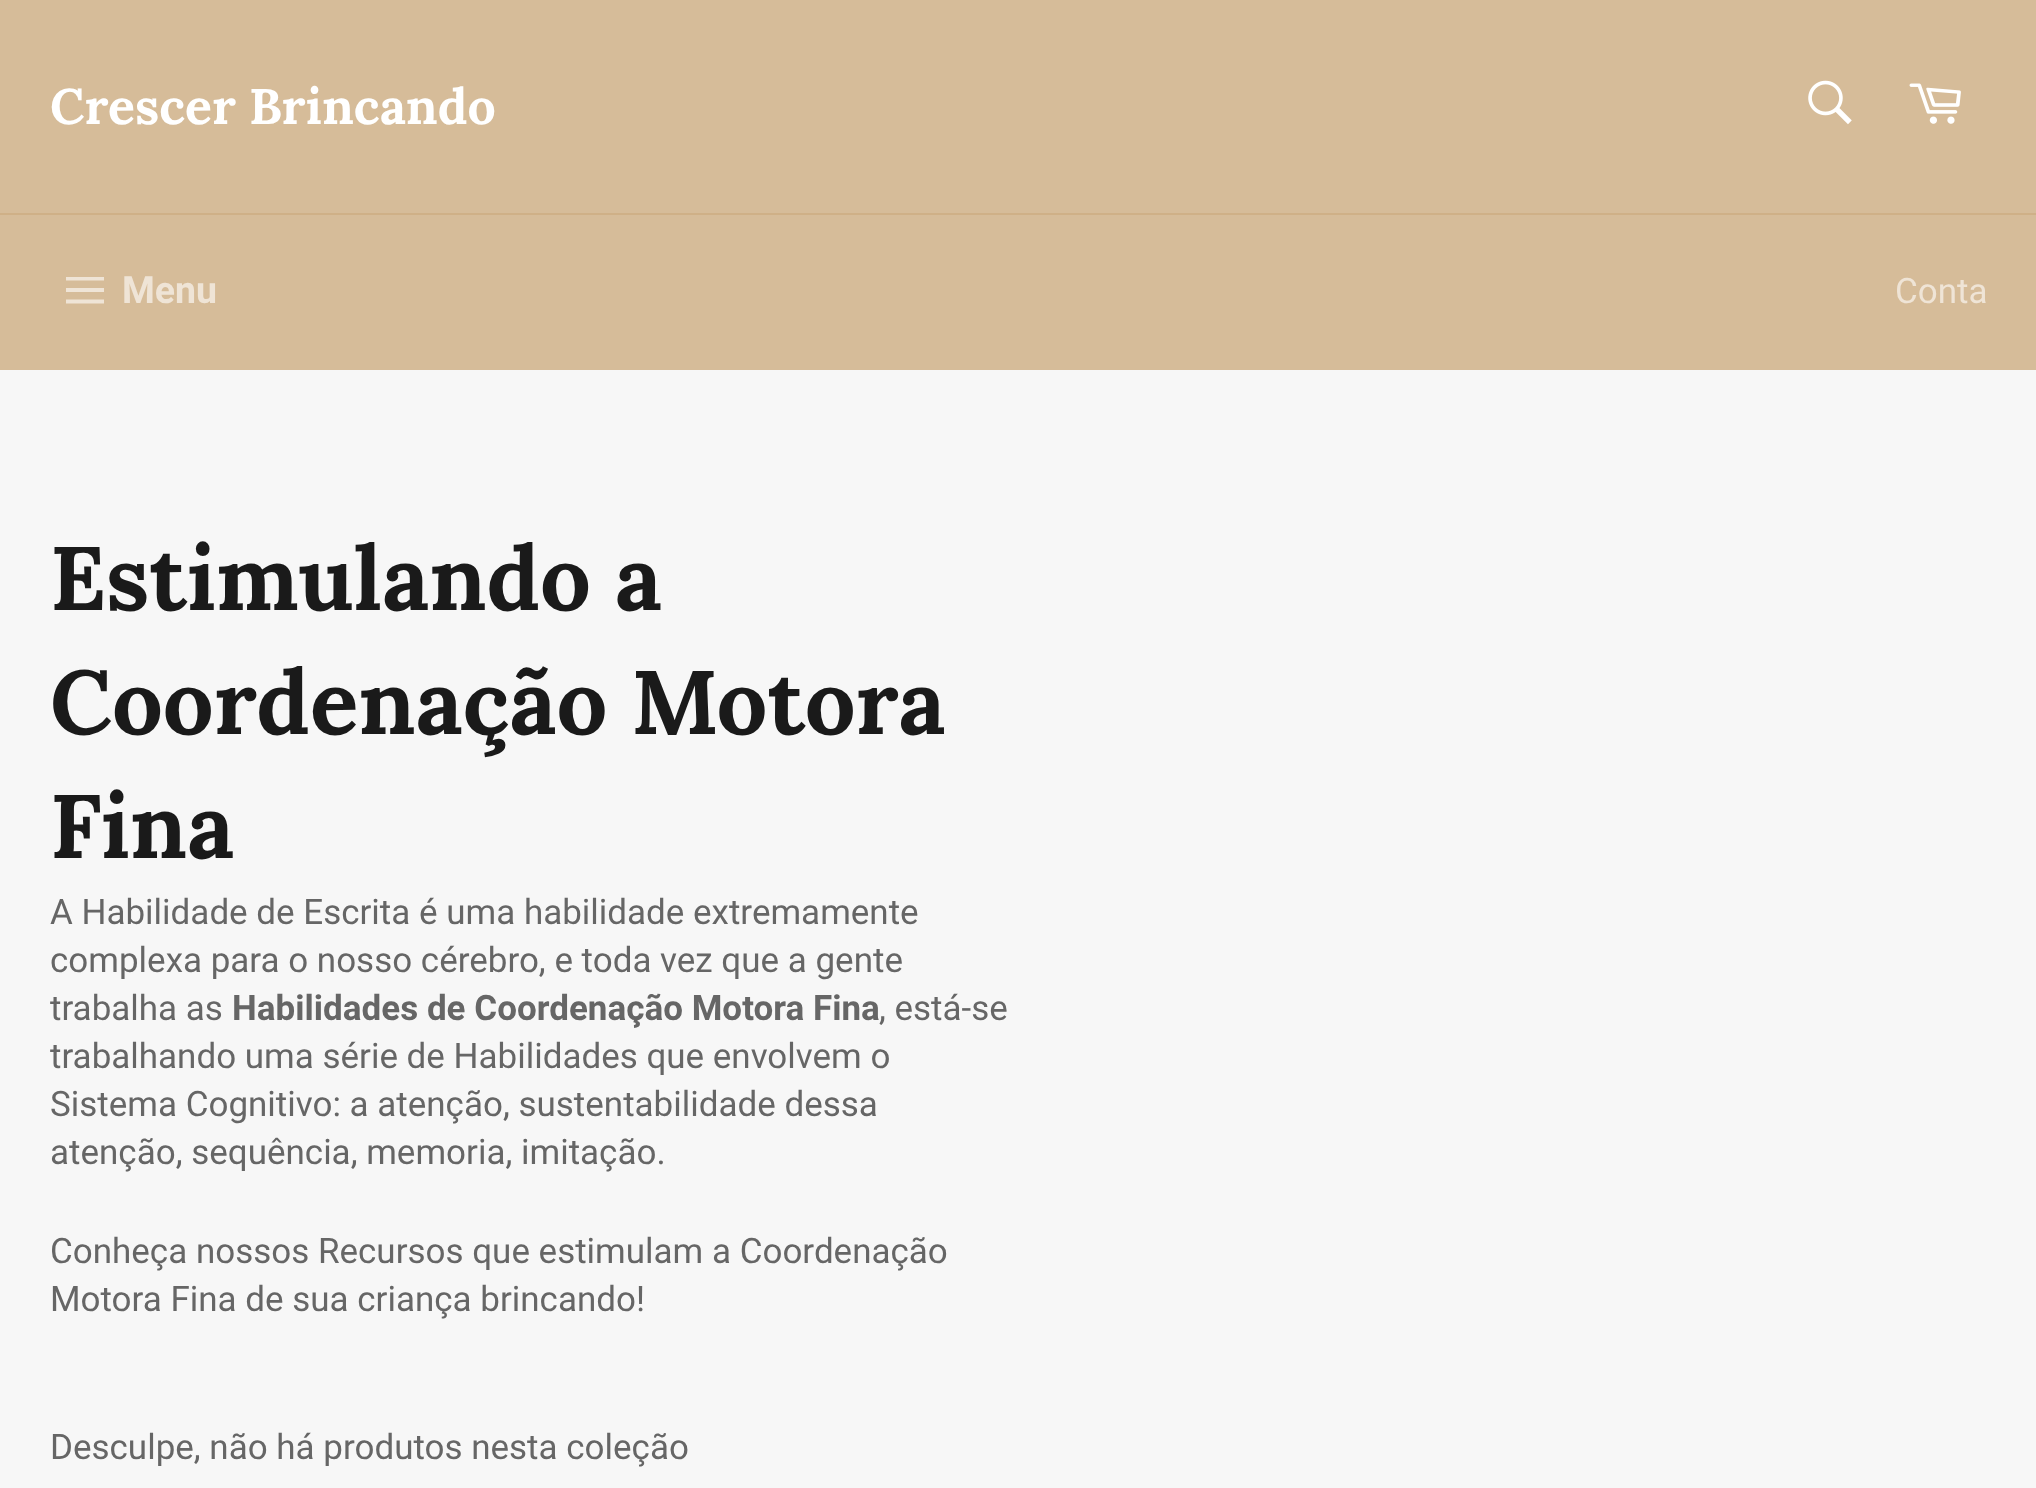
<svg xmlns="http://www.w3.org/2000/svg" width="2036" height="1488">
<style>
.a{font:bold 50px Lora;fill:#fff}
.b{font:bold 37.5px Roboto;fill:#efe4d6}
.c{font:35px Roboto;fill:#efe4d6}
.d{font:bold 90px Lora;fill:#1a1a1a}
.e{font:35px Roboto;fill:#666}
.f{font:bold 35px Roboto;fill:#666}
</style>
<rect width="100%" height="100%" fill="#f7f7f7"/>
<path fill="#d6bc99" d="M0 0h2036v213H0z"/>
<image href="1.png" x="1808" y="80" width="44" height="45"/>
<image href="2.png" x="1909" y="83" width="52" height="41"/>
<path fill="#cfb087" d="M0 213h2036v2H0z"/>
<path fill="#d6bc99" d="M0 215h2036v155H0z"/>
<path fill="#efe4d6" d="M66 288h38v4h-38zm0-11h38v3.5h-38zm0 22.5h38v4h-38z"/>
<text class="a" x="50" y="124">Crescer Brincando</text>
<text class="b" x="122" y="303">Menu</text>
<text class="c" x="1895" y="303">Conta</text>
<text class="d" x="50" y="610">Estimulando a</text>
<text class="d" x="50" y="734">Coordenação Motora</text>
<text class="d" x="50" y="858">Fina</text>
<text class="e" x="50" y="924">A Habilidade de Escrita é uma habilidade extremamente</text>
<text class="e" x="50" y="972">complexa para o nosso cérebro, e toda vez que a gente</text>
<text class="e" x="50" y="1020">trabalha as</text>
<text class="f" x="232" y="1020">Habilidades de Coordenação Motora Fina</text>
<text class="e" x="879" y="1020">, está-se</text>
<text class="e" x="50" y="1068">trabalhando uma série de Habilidades que envolvem o</text>
<text class="e" x="50" y="1116">Sistema Cognitivo: a atenção, sustentabilidade dessa</text>
<text class="e" x="50" y="1164">atenção, sequência, memoria, imitação.</text>
<text class="e" x="50" y="1263">Conheça nossos Recursos que estimulam a Coordenação</text>
<text class="e" x="50" y="1311">Motora Fina de sua criança brincando!</text>
<text class="e" x="50" y="1459">Desculpe, não há produtos nesta coleção</text>
</svg>
